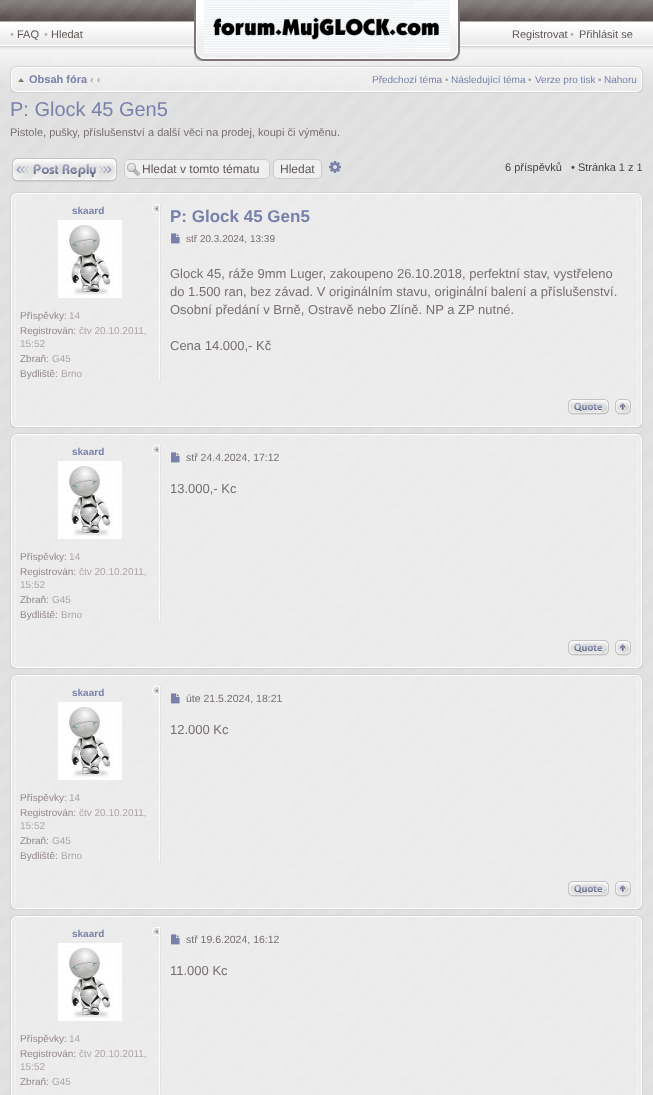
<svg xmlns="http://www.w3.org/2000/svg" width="653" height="1095">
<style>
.a{font:11px Liberation Sans;fill:#bab4b4}
.b{font:11px Liberation Sans;fill:#5f5756}
.c{font:bold 11px Liberation Sans;fill:#7981ab}
.d{font:bold 11px Liberation Sans;fill:#afa5a5}
.e{font:10px Liberation Sans;fill:#7981ab}
.f{font:10px Liberation Sans;fill:#afa5a5}
.g{font:20px Liberation Sans;fill:#7981ab}
.h{font:11px Liberation Sans;fill:#776f6f}
.i{font:12px Liberation Sans;fill:#5f5756}
.j{font:11px Liberation Sans;fill:#444}
.k{font:bold 10px Liberation Sans;fill:#7981ab}
.l{font:10px Liberation Sans;fill:#938787}
.m{font:bold 17px Liberation Sans;fill:#7981ab}
.n{font:10px Liberation Sans;fill:#776f6f}
.o{font:13px Liberation Sans;fill:#776f6f}
.p{font:10.5px Liberation Sans;fill:#776f6f}
</style>
<rect width="100%" height="100%" fill="#fff"/>
<image href="1.png" x="0" y="84" width="653" height="1011"/>
<image href="2.png" x="0" y="0" width="653" height="84"/>
<image href="3.png" x="204" y="53" width="246" height="8"/>
<image href="4.png" x="194" y="0" width="10" height="61"/>
<image href="5.png" x="204" y="0" width="246" height="53"/>
<image href="6.png" x="450" y="0" width="10" height="61"/>
<image href="7.png" x="16" y="66" width="621" height="6"/>
<image href="8.png" x="10" y="66" width="6" height="6"/>
<image href="9.png" x="637" y="66" width="6" height="6"/>
<image href="10.png" x="10" y="72" width="6" height="15"/>
<image href="11.png" x="637" y="72" width="6" height="15"/>
<path fill="#f7f7f780" d="M15 72h622v15H15z"/>
<image href="12.png" x="18" y="78" width="6" height="4"/>
<image href="13.png" x="16" y="87" width="621" height="6"/>
<image href="14.png" x="10" y="87" width="6" height="6"/>
<image href="15.png" x="637" y="87" width="6" height="6"/>
<image href="16.png" x="12" y="158" width="105" height="24"/>
<rect fill="#efefef" x="124" y="159" width="146" height="20" rx="5"/>
<image href="17.png" x="127" y="163" width="13" height="13"/>
<rect fill="none" stroke="#ccc" x="124.5" y="159.5" width="145" height="19" rx="4.5"/>
<rect fill="#efefef" stroke="#ccc" x="273.5" y="159.5" width="48" height="19" rx="4.5"/>
<image href="18.png" x="329" y="161" width="12" height="12"/>
<image href="19.png" x="16" y="192" width="621" height="6"/>
<image href="20.png" x="10" y="192" width="6" height="6"/>
<image href="21.png" x="637" y="192" width="6" height="6"/>
<image href="22.png" x="10" y="198" width="6" height="224"/>
<image href="23.png" x="637" y="198" width="6" height="224"/>
<path fill="#f7f7f780" d="M15 198h623v224H15z"/>
<path fill="#e3e3e3" d="M160 204h1v178H160z"/>
<path fill="#fcfcfc" d="M159 204h1v176H159z"/>
<image href="24.png" x="152" y="204" width="7" height="9"/>
<image href="25.png" x="58" y="220" width="64" height="78"/>
<image href="26.png" x="171" y="233" width="9" height="11"/>
<image href="27.png" x="571" y="414" width="35" height="1"/>
<image href="28.png" x="568" y="399" width="41" height="15"/>
<image href="29.png" x="618" y="414" width="10" height="1"/>
<image href="30.png" x="615" y="399" width="16" height="15"/>
<image href="31.png" x="16" y="422" width="621" height="6"/>
<image href="32.png" x="10" y="422" width="6" height="6"/>
<image href="33.png" x="637" y="422" width="6" height="6"/>
<image href="34.png" x="16" y="433" width="621" height="6"/>
<image href="35.png" x="10" y="433" width="6" height="6"/>
<image href="36.png" x="637" y="433" width="6" height="6"/>
<image href="37.png" x="10" y="439" width="6" height="224"/>
<image href="38.png" x="637" y="439" width="6" height="224"/>
<path fill="#f7f7f780" d="M15 439h623v224H15z"/>
<path fill="#e3e3e3" d="M160 445h1v178H160z"/>
<path fill="#fcfcfc" d="M159 445h1v176H159z"/>
<image href="39.png" x="152" y="445" width="7" height="9"/>
<image href="25.png" x="58" y="461" width="64" height="78"/>
<image href="40.png" x="171" y="452" width="9" height="11"/>
<image href="27.png" x="571" y="655" width="35" height="1"/>
<image href="41.png" x="568" y="640" width="41" height="15"/>
<image href="29.png" x="618" y="655" width="10" height="1"/>
<image href="42.png" x="615" y="640" width="16" height="15"/>
<image href="43.png" x="16" y="663" width="621" height="6"/>
<image href="44.png" x="10" y="663" width="6" height="6"/>
<image href="45.png" x="637" y="663" width="6" height="6"/>
<image href="46.png" x="16" y="674" width="621" height="6"/>
<image href="47.png" x="10" y="674" width="6" height="6"/>
<image href="48.png" x="637" y="674" width="6" height="6"/>
<image href="49.png" x="10" y="680" width="6" height="224"/>
<image href="50.png" x="637" y="680" width="6" height="224"/>
<path fill="#f7f7f780" d="M15 680h623v224H15z"/>
<path fill="#e3e3e3" d="M160 686h1v178H160z"/>
<path fill="#fcfcfc" d="M159 686h1v176H159z"/>
<image href="51.png" x="152" y="686" width="7" height="9"/>
<image href="25.png" x="58" y="702" width="64" height="78"/>
<image href="52.png" x="171" y="693" width="9" height="11"/>
<image href="27.png" x="571" y="896" width="35" height="1"/>
<image href="53.png" x="568" y="881" width="41" height="15"/>
<image href="29.png" x="618" y="896" width="10" height="1"/>
<image href="54.png" x="615" y="881" width="16" height="15"/>
<image href="55.png" x="16" y="904" width="621" height="6"/>
<image href="56.png" x="10" y="904" width="6" height="6"/>
<image href="57.png" x="637" y="904" width="6" height="6"/>
<image href="58.png" x="16" y="915" width="621" height="6"/>
<image href="59.png" x="10" y="915" width="6" height="6"/>
<image href="60.png" x="637" y="915" width="6" height="6"/>
<image href="61.png" x="10" y="921" width="6" height="174"/>
<image href="62.png" x="637" y="921" width="6" height="174"/>
<path fill="#f7f7f780" d="M15 921h623v174H15z"/>
<path fill="#e3e3e3" d="M160 927h1v168H160z"/>
<path fill="#fcfcfc" d="M159 927h1v168H159z"/>
<image href="63.png" x="152" y="927" width="7" height="9"/>
<image href="25.png" x="58" y="943" width="64" height="78"/>
<image href="64.png" x="171" y="934" width="9" height="11"/>
<text class="a" x="10" y="38">•</text>
<text class="b" x="17" y="38">FAQ</text>
<text class="a" x="44" y="38">•</text>
<text class="b" x="51" y="38">Hledat</text>
<text class="b" x="512" y="38">Registrovat</text>
<text class="a" x="570" y="38">•</text>
<text class="b" x="579" y="38">Přihlásit se</text>
<text class="c" x="29" y="83">Obsah fóra</text>
<text class="d" x="90" y="83">‹ ‹</text>
<text class="e" x="372" y="83">Předchozí téma</text>
<text class="f" x="445" y="83">•</text>
<text class="e" x="451" y="83">Následující téma</text>
<text class="f" x="528" y="83">•</text>
<text class="e" x="535" y="83">Verze pro tisk</text>
<text class="f" x="598" y="83">•</text>
<text class="e" x="604" y="83">Nahoru</text>
<text class="g" x="10" y="116">P: Glock 45 Gen5</text>
<text class="h" x="10" y="136">Pistole, pušky, příslušenství a další věci na prodej, koupi či výměnu.</text>
<text class="i" x="142" y="173">Hledat v tomto tématu</text>
<text class="i" x="280" y="173">Hledat</text>
<text class="j" x="505" y="171">6 příspěvků</text>
<text class="j" x="571" y="171">• Stránka 1 z 1</text>
<text class="k" x="72" y="214">skaard</text>
<text class="l" x="20" y="319">Příspěvky:</text>
<text class="f" x="69" y="319">14</text>
<text class="l" x="20" y="334">Registrován:</text>
<text class="f" x="79" y="334">čtv 20.10.2011,</text>
<text class="f" x="20" y="347">15:52</text>
<text class="l" x="20" y="362">Zbraň:</text>
<text class="f" x="52" y="362">G45</text>
<text class="l" x="20" y="377">Bydliště:</text>
<text class="f" x="61" y="377">Brno</text>
<text class="m" x="170" y="222">P: Glock 45 Gen5</text>
<text class="n" x="186" y="242">stř 20.3.2024, 13:39</text>
<text class="o" x="170" y="278">Glock 45, ráže 9mm Luger, zakoupeno 26.10.2018, perfektní stav, vystřeleno</text>
<text class="o" x="170" y="296">do 1.500 ran, bez závad. V originálním stavu, originální balení a příslušenství.</text>
<text class="o" x="170" y="314">Osobní předání v Brně, Ostravě nebo Zlíně. NP a ZP nutné.</text>
<text class="o" x="170" y="350">Cena 14.000,- Kč</text>
<text class="k" x="72" y="455">skaard</text>
<text class="l" x="20" y="560">Příspěvky:</text>
<text class="f" x="69" y="560">14</text>
<text class="l" x="20" y="575">Registrován:</text>
<text class="f" x="79" y="575">čtv 20.10.2011,</text>
<text class="f" x="20" y="588">15:52</text>
<text class="l" x="20" y="603">Zbraň:</text>
<text class="f" x="52" y="603">G45</text>
<text class="l" x="20" y="618">Bydliště:</text>
<text class="f" x="61" y="618">Brno</text>
<text class="p" x="186" y="461">stř 24.4.2024, 17:12</text>
<text class="o" x="170" y="493">13.000,- Kc</text>
<text class="k" x="72" y="696">skaard</text>
<text class="l" x="20" y="801">Příspěvky:</text>
<text class="f" x="69" y="801">14</text>
<text class="l" x="20" y="816">Registrován:</text>
<text class="f" x="79" y="816">čtv 20.10.2011,</text>
<text class="f" x="20" y="829">15:52</text>
<text class="l" x="20" y="844">Zbraň:</text>
<text class="f" x="52" y="844">G45</text>
<text class="l" x="20" y="859">Bydliště:</text>
<text class="f" x="61" y="859">Brno</text>
<text class="p" x="186" y="702">úte 21.5.2024, 18:21</text>
<text class="o" x="170" y="734">12.000 Kc</text>
<text class="k" x="72" y="937">skaard</text>
<text class="l" x="20" y="1042">Příspěvky:</text>
<text class="f" x="69" y="1042">14</text>
<text class="l" x="20" y="1057">Registrován:</text>
<text class="f" x="79" y="1057">čtv 20.10.2011,</text>
<text class="f" x="20" y="1070">15:52</text>
<text class="l" x="20" y="1085">Zbraň:</text>
<text class="f" x="52" y="1085">G45</text>
<text class="p" x="186" y="943">stř 19.6.2024, 16:12</text>
<text class="o" x="170" y="975">11.000 Kc</text>
</svg>
